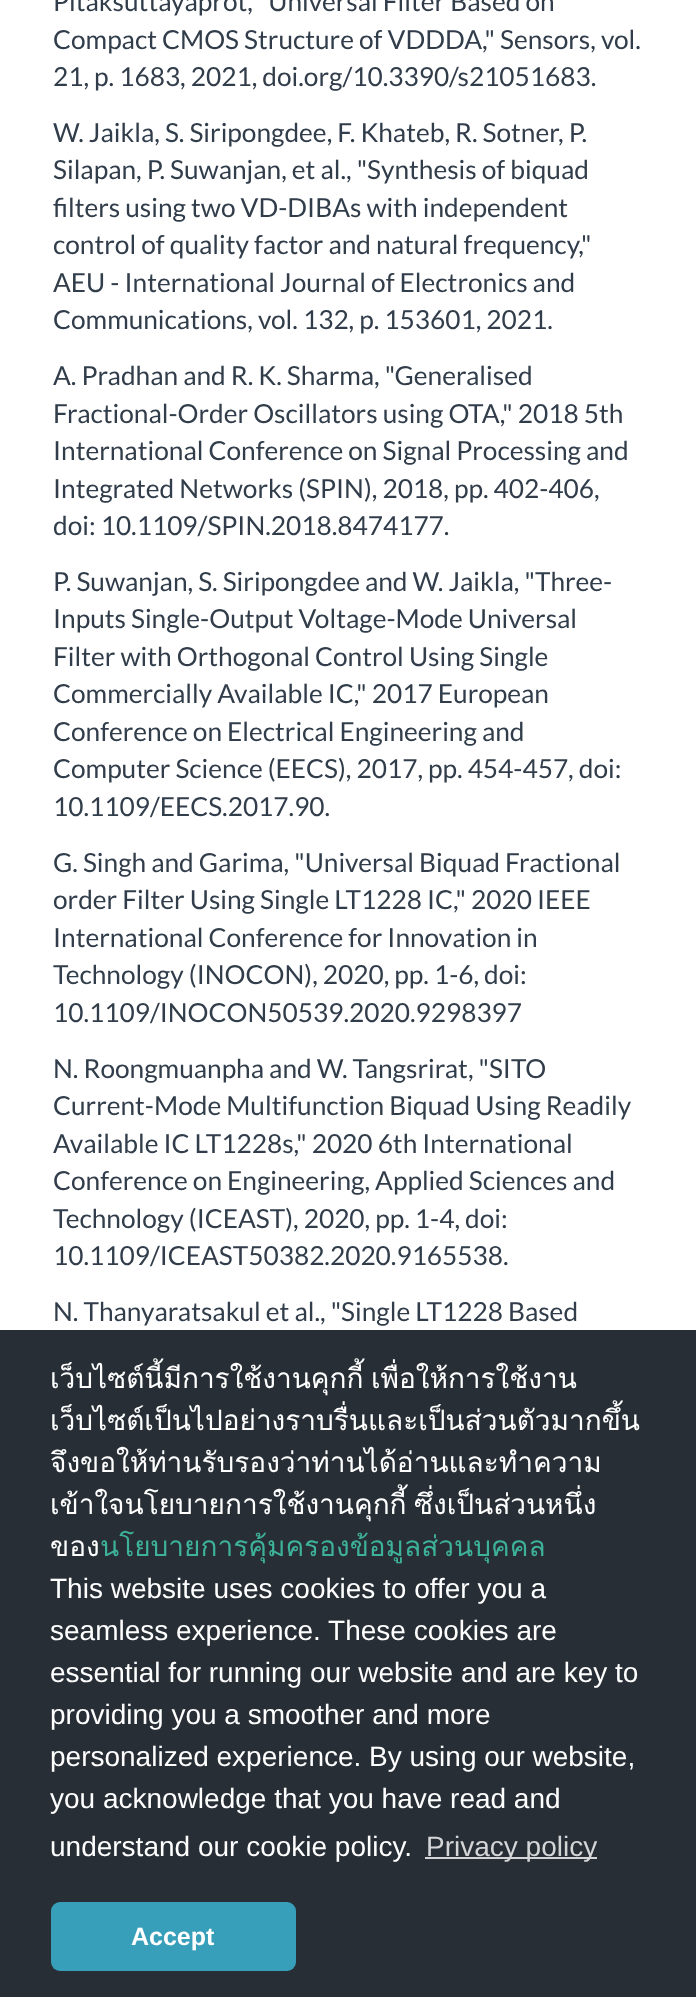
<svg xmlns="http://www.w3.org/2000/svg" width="696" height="1997">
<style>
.a{font:26.25px Lato;fill:#313d4a}
.b{font:28px Loma;fill:#fff}
.c{font:28px Loma;fill:#3eb19a}
.d{font:28px Liberation Sans;fill:#fff}
.e{font:28px Liberation Sans;fill:#d4d5d7}
.f{font:bold 25px Liberation Sans;fill:#fff}
</style>
<rect width="100%" height="100%" fill="#fff"/>
<path fill="#272e35" d="M0 1330h696v667H0z"/>
<path fill="#d4d5d7" d="M425 1857h172v2H425z"/>
<rect fill="#389fbb" x="51" y="1902" width="245" height="69" rx="9"/>
<text class="a" x="53" y="11">Pitaksuttayaprot, "Universal Filter Based on</text>
<text class="a" x="53" y="49">Compact CMOS Structure of VDDDA," Sensors, vol.</text>
<text class="a" x="53" y="86">21, p. 1683, 2021, doi.org/10.3390/s21051683.</text>
<text class="a" x="53" y="142">W. Jaikla, S. Siripongdee, F. Khateb, R. Sotner, P.</text>
<text class="a" x="53" y="179">Silapan, P. Suwanjan, et al., "Synthesis of biquad</text>
<text class="a" x="53" y="217">filters using two VD-DIBAs with independent</text>
<text class="a" x="53" y="254">control of quality factor and natural frequency,"</text>
<text class="a" x="53" y="292">AEU - International Journal of Electronics and</text>
<text class="a" x="53" y="329">Communications, vol. 132, p. 153601, 2021.</text>
<text class="a" x="53" y="385">A. Pradhan and R. K. Sharma, "Generalised</text>
<text class="a" x="53" y="423">Fractional-Order Oscillators using OTA," 2018 5th</text>
<text class="a" x="53" y="460">International Conference on Signal Processing and</text>
<text class="a" x="53" y="498">Integrated Networks (SPIN), 2018, pp. 402-406,</text>
<text class="a" x="53" y="535">doi: 10.1109/SPIN.2018.8474177.</text>
<text class="a" x="53" y="591">P. Suwanjan, S. Siripongdee and W. Jaikla, "Three-</text>
<text class="a" x="53" y="628">Inputs Single-Output Voltage-Mode Universal</text>
<text class="a" x="53" y="666">Filter with Orthogonal Control Using Single</text>
<text class="a" x="53" y="703">Commercially Available IC," 2017 European</text>
<text class="a" x="53" y="741">Conference on Electrical Engineering and</text>
<text class="a" x="53" y="778">Computer Science (EECS), 2017, pp. 454-457, doi:</text>
<text class="a" x="53" y="816">10.1109/EECS.2017.90.</text>
<text class="a" x="53" y="872">G. Singh and Garima, "Universal Biquad Fractional</text>
<text class="a" x="53" y="909">order Filter Using Single LT1228 IC," 2020 IEEE</text>
<text class="a" x="53" y="947">International Conference for Innovation in</text>
<text class="a" x="53" y="984">Technology (INOCON), 2020, pp. 1-6, doi:</text>
<text class="a" x="53" y="1022">10.1109/INOCON50539.2020.9298397</text>
<text class="a" x="53" y="1078">N. Roongmuanpha and W. Tangsrirat, "SITO</text>
<text class="a" x="53" y="1115">Current-Mode Multifunction Biquad Using Readily</text>
<text class="a" x="53" y="1153">Available IC LT1228s," 2020 6th International</text>
<text class="a" x="53" y="1190">Conference on Engineering, Applied Sciences and</text>
<text class="a" x="53" y="1228">Technology (ICEAST), 2020, pp. 1-4, doi:</text>
<text class="a" x="53" y="1265">10.1109/ICEAST50382.2020.9165538.</text>
<text class="a" x="53" y="1321">N. Thanyaratsakul et al., "Single LT1228 Based</text>
<text class="b" x="50" y="1388" word-spacing="-2">เว็บไซต์นี้มีการใช้งานคุกกี้ เพื่อให้การใช้งาน</text>
<text class="b" x="50" y="1430">เว็บไซต์เป็นไปอย่างราบรื่นและเป็นส่วนตัวมากขึ้น</text>
<text class="b" x="50" y="1472">จึงขอให้ท่านรับรองว่าท่านได้อ่านและทำความ</text>
<text class="b" x="50" y="1514" word-spacing="-2">เข้าใจนโยบายการใช้งานคุกกี้ ซึ่งเป็นส่วนหนึ่ง</text>
<text class="b" x="50" y="1556">ของ</text>
<text class="c" x="100" y="1556">นโยบายการคุ้มครองข้อมูลส่วนบุคคล</text>
<text class="d" x="50" y="1598">This website uses cookies to offer you a</text>
<text class="d" x="50" y="1640">seamless experience. These cookies are</text>
<text class="d" x="50" y="1682">essential for running our website and are key to</text>
<text class="d" x="50" y="1724">providing you a smoother and more</text>
<text class="d" x="50" y="1766">personalized experience. By using our website,</text>
<text class="d" x="50" y="1808">you acknowledge that you have read and</text>
<text class="d" x="50" y="1856">understand our cookie policy.</text>
<text class="e" x="426" y="1856">Privacy policy</text>
<text class="f" x="131" y="1945">Accept</text>
</svg>
